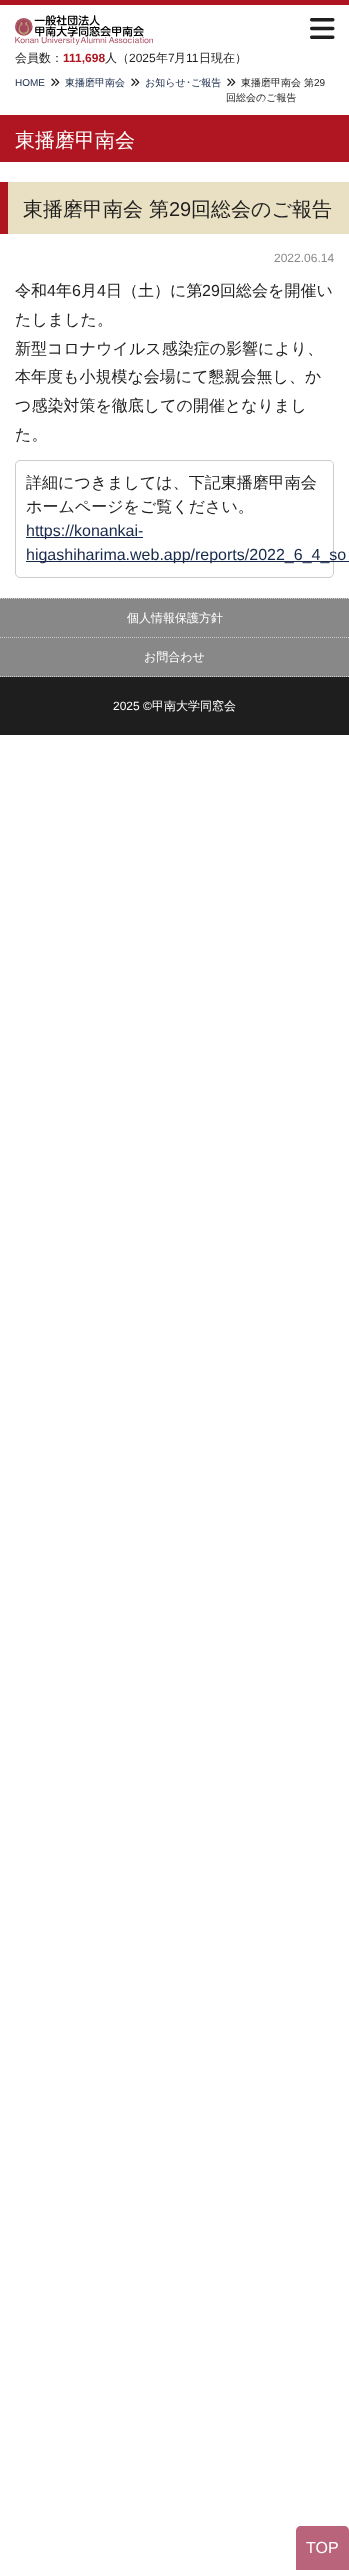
<svg xmlns="http://www.w3.org/2000/svg" width="349" height="2570">
<style>
.a{font:500 12px WenQuanYi Zen Hei;fill:#1f1e1e}
.b{font:bold 12px Liberation Sans;fill:#b01621}
.c{font:12px Liberation Sans;fill:#1f1e1e}
.d{font:10px Liberation Sans;fill:#18294a}
.e{font:500 10px WenQuanYi Zen Hei;fill:#18294a}
.f{font:10px IPAPGothic;fill:#18294a}
.g{font:500 10px WenQuanYi Zen Hei;fill:#1f1e1e}
.h{font:10px Liberation Sans;fill:#1f1e1e}
.i{font:500 20px WenQuanYi Zen Hei;fill:#fff}
.j{font:500 20px WenQuanYi Zen Hei;fill:#1f1e1e}
.k{font:20px Liberation Sans;fill:#1f1e1e}
.l{font:12px Liberation Sans;fill:#888}
.m{font:500 16px WenQuanYi Zen Hei;fill:#1f1e1e}
.n{font:16px Liberation Sans;fill:#1f1e1e}
.o{font:16px Liberation Sans;fill:#18294a}
.p{font:500 12px WenQuanYi Zen Hei;fill:#fff}
.q{font:12px Liberation Sans;fill:#fff}
.r{font:16px Liberation Sans;fill:#fff}
</style>
<rect width="100%" height="100%" fill="#fff"/>
<path fill="#b01621" d="M0 0h349v5H0z"/>
<image href="1.png" x="15" y="15" width="138" height="30"/>
<image href="2.png" x="310" y="18" width="25" height="21"/>
<image href="3.png" x="51" y="78" width="9" height="8"/>
<image href="3.png" x="131" y="78" width="9" height="8"/>
<image href="3.png" x="227" y="78" width="9" height="8"/>
<path fill="#b01621" d="M0 115h349v47H0z"/>
<path fill="#e9e0c4" d="M8 182h341v52H8z"/>
<path fill="#b01621" d="M0 182h8v52H0z"/>
<rect fill="none" stroke="#ccc" x="15.5" y="460.5" width="318" height="117" rx="4.5"/>
<path fill="#18294a" d="M26 537h117v1H26z"/>
<path fill="#18294a" d="M26 561h323v1H26z"/>
<path fill="#1f1e1e" d="M0 677h349v58H0z"/>
<path fill="#888" d="M0 598h349v79H0z"/>
<path fill="none" stroke="#ccc" stroke-dasharray="1 1" d="M0 598.5h349"/>
<path fill="none" stroke="#ccc" stroke-dasharray="1 1" d="M0 637.5h349"/>
<path fill="none" stroke="#ccc" stroke-dasharray="1 1" d="M0 676.5h349"/>
<path fill="#ba647b" d="M301 2526h43c3 0 5 2 5 5v39h-53v-39c0-3 2-5 5-5z"/>
<text class="a" x="15" y="62">会員数：</text>
<text class="b" x="63" y="62">111,698</text>
<text class="a" x="105" y="62">人（</text>
<text class="c" x="129" y="62">2025</text>
<text class="a" x="156" y="62">年</text>
<text class="c" x="168" y="62">7</text>
<text class="a" x="174" y="62">月</text>
<text class="c" x="186" y="62">11</text>
<text class="a" x="199" y="62">日現在）</text>
<text class="d" x="15" y="86">HOME</text>
<text class="e" x="65" y="86">東播磨甲南会</text>
<text class="e" x="145" y="86">お知らせ</text>
<text class="f" x="186" y="86">･</text>
<text class="e" x="191" y="86">ご報告</text>
<text class="g" x="241" y="86">東播磨甲南会 第</text>
<text class="h" x="314" y="86">29</text>
<text class="g" x="226" y="101">回総会のご報告</text>
<text class="i" x="15" y="147">東播磨甲南会</text>
<text class="j" x="23" y="216">東播磨甲南会 第</text>
<text class="k" x="169" y="216">29</text>
<text class="j" x="191" y="216">回総会のご報告</text>
<text class="l" x="274" y="262">2022.06.14</text>
<text class="m" x="15" y="296">令和</text>
<text class="n" x="47" y="296">4</text>
<text class="m" x="56" y="296">年</text>
<text class="n" x="72" y="296">6</text>
<text class="m" x="81" y="296">月</text>
<text class="n" x="97" y="296">4</text>
<text class="m" x="106" y="296">日（土）に第</text>
<text class="n" x="202" y="296">29</text>
<text class="m" x="220" y="296">回総会を開催い</text>
<text class="m" x="15" y="325">たしました。</text>
<text class="m" x="15" y="354">新型コロナウイルス感染症の影響により、</text>
<text class="m" x="15" y="382">本年度も小規模な会場にて懇親会無し、か</text>
<text class="m" x="15" y="411">つ感染対策を徹底しての開催となりまし</text>
<text class="m" x="15" y="440">た。</text>
<text class="m" x="26" y="488">詳細につきましては、下記東播磨甲南会</text>
<text class="m" x="26" y="512">ホームページをご覧ください。</text>
<text class="o" x="26" y="536">https://konankai-</text>
<text class="o" x="26" y="560">higashiharima.web.app/reports/2022_6_4_so</text>
<text class="p" x="127" y="622">個人情報保護方針</text>
<text class="p" x="144" y="661">お問合わせ</text>
<text class="q" x="113" y="710">2025 ©</text>
<text class="p" x="152" y="710">甲南大学同窓会</text>
<text class="r" x="306" y="2553">TOP</text>
</svg>
